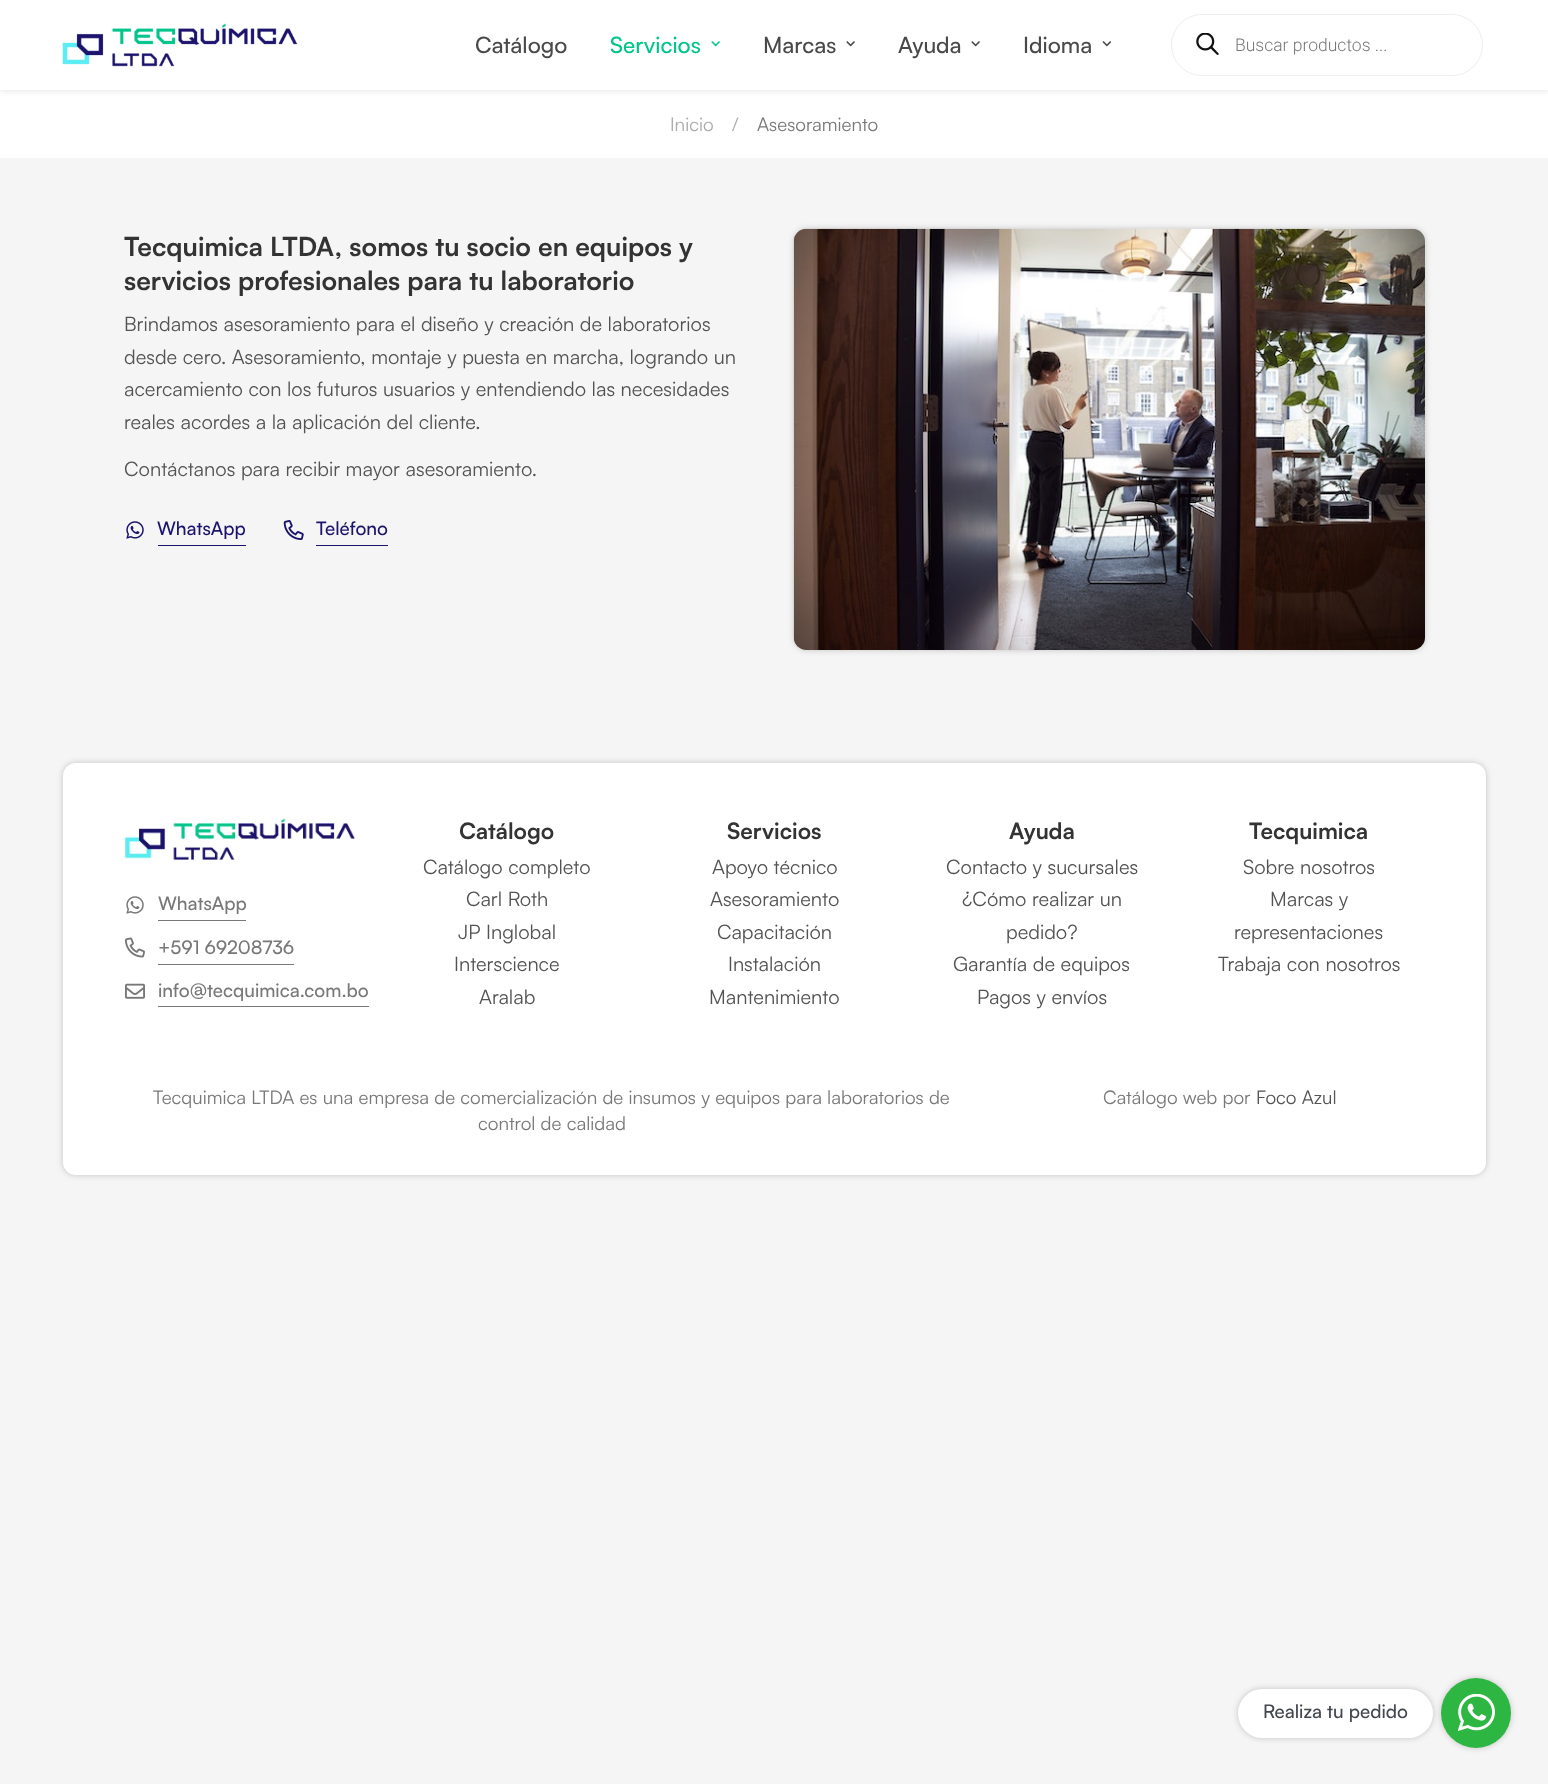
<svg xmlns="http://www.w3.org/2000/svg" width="1548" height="1784">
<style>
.a{font:500 22.5px Satoshi;fill:#494949}
.b{font:500 22.5px Satoshi;fill:#02c58b}
.c{font:300 17.5px Roboto;fill:#787878}
.d{font:18.75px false;fill:#ababab}
.e{font:18.75px false;fill:#787878}
.f{font:bold 26.25px false;fill:#333}
.g{font:20px false;fill:#535353}
.h{font:500 18.75px Satoshi;fill:#1b146c}
.i{font:500 18.75px Satoshi;fill:#787878}
.j{font:bold 22.5px false;fill:#333}
.k{font:18.75px false;fill:#535353}
.l{font:500 18.75px Satoshi;fill:#43474e}
</style>
<rect width="100%" height="100%" fill="#f5f5f5"/>
<path fill="#fff" d="M0 90h1548v68H0z"/>
<path fill="#0000001a" filter="blur(3px)" d="M0 1h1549v90H0z"/>
<path fill="#fff" d="M0 0h1548v90H0z"/>
<image href="1.png" x="62" y="23" width="236" height="44"/>
<image href="2.png" x="711" y="41" width="9" height="6"/>
<image href="3.png" x="846" y="41" width="9" height="6"/>
<image href="3.png" x="971" y="41" width="9" height="6"/>
<image href="4.png" x="1102" y="41" width="10" height="6"/>
<rect fill="none" stroke="#eee" x="1171.5" y="14.5" width="311" height="61" rx="30.5"/>
<rect fill="#fff" x="1173" y="15" width="308" height="60" rx="30"/>
<image href="5.png" x="1196" y="33" width="23" height="22"/>
<image href="6.png" x="126" y="521" width="18" height="18"/>
<path fill="#1b146c" d="M158 545h88v1H158z"/>
<image href="7.png" x="283" y="520" width="21" height="20"/>
<path fill="#1b146c" d="M316 545h72v1H316z"/>
<rect fill="#00000033" filter="blur(3px)" x="794" y="229" width="631" height="421" rx="13"/>
<image href="8.png" x="793" y="228" width="632" height="422"/>
<rect fill="#00000033" filter="blur(3px)" x="63" y="763" width="1423" height="412" rx="13"/>
<rect fill="#fff" x="63" y="763" width="1423" height="412" rx="13"/>
<image href="9.png" x="125" y="818" width="230" height="42"/>
<image href="10.png" x="126" y="896" width="18" height="18"/>
<path fill="#787878" d="M158 920h88v1H158z"/>
<image href="11.png" x="125" y="937" width="20" height="21"/>
<path fill="#787878" d="M158 964h136v1H158z"/>
<image href="12.png" x="125" y="983" width="20" height="16"/>
<path fill="#787878" d="M158 1006h211v1H158z"/>
<rect fill="#00000033" filter="blur(3px)" x="1441" y="1678" width="70" height="70" rx="35"/>
<circle fill="#2db742" cx="1476" cy="1713" r="35"/>
<rect fill="#00000033" filter="blur(3px)" x="1238" y="1689" width="195" height="49" rx="24.5"/>
<rect fill="#fff" x="1238" y="1689" width="195" height="49" rx="24.5"/>
<image href="13.png" x="1458" y="1694" width="37" height="37"/>
<text class="a" x="475" y="53">Catálogo</text>
<text class="b" x="610" y="53">Servicios</text>
<text class="a" x="763" y="53">Marcas</text>
<text class="a" x="898" y="53">Ayuda</text>
<text class="a" x="1023" y="53">Idioma</text>
<text class="c" x="1235" y="51">Buscar productos ...</text>
<text class="d" x="670" y="131">Inicio</text>
<text class="d" x="732" y="131">/</text>
<text class="e" x="757" y="131">Asesoramiento</text>
<text class="f" x="124" y="256">Tecquimica LTDA, somos tu socio en equipos y</text>
<text class="f" x="124" y="290">servicios profesionales para tu laboratorio</text>
<text class="g" x="124" y="331">Brindamos asesoramiento para el diseño y creación de laboratorios</text>
<text class="g" x="124" y="364">desde cero. Asesoramiento, montaje y puesta en marcha, logrando un</text>
<text class="g" x="124" y="396">acercamiento con los futuros usuarios y entendiendo las necesidades</text>
<text class="g" x="124" y="429">reales acordes a la aplicación del cliente.</text>
<text class="g" x="124" y="476">Contáctanos para recibir mayor asesoramiento.</text>
<text class="h" x="157" y="535">WhatsApp</text>
<text class="h" x="316" y="535">Teléfono</text>
<text class="i" x="158" y="910">WhatsApp</text>
<text class="i" x="158" y="954">+591 69208736</text>
<text class="i" x="158" y="997">info@tecquimica.com.bo</text>
<text class="j" x="459" y="839">Catálogo</text>
<text class="g" x="423" y="874">Catálogo completo</text>
<text class="g" x="466" y="906">Carl Roth</text>
<text class="g" x="458" y="939">JP Inglobal</text>
<text class="g" x="454" y="971">Interscience</text>
<text class="g" x="479" y="1004">Aralab</text>
<text class="j" x="727" y="839">Servicios</text>
<text class="g" x="712" y="874">Apoyo técnico</text>
<text class="g" x="710" y="906">Asesoramiento</text>
<text class="g" x="717" y="939">Capacitación</text>
<text class="g" x="728" y="971">Instalación</text>
<text class="g" x="709" y="1004">Mantenimiento</text>
<text class="j" x="1009" y="839">Ayuda</text>
<text class="g" x="946" y="874">Contacto y sucursales</text>
<text class="g" x="962" y="906">¿Cómo realizar un</text>
<text class="g" x="1006" y="939">pedido?</text>
<text class="g" x="953" y="971">Garantía de equipos</text>
<text class="g" x="977" y="1004">Pagos y envíos</text>
<text class="j" x="1249" y="839">Tecquimica</text>
<text class="g" x="1243" y="874">Sobre nosotros</text>
<text class="g" x="1270" y="906">Marcas y</text>
<text class="g" x="1234" y="939">representaciones</text>
<text class="g" x="1218" y="971">Trabaja con nosotros</text>
<text class="e" x="153" y="1104">Tecquimica LTDA es una empresa de comercialización de insumos y equipos para laboratorios de</text>
<text class="e" x="478" y="1130">control de calidad</text>
<text class="e" x="1103" y="1104">Catálogo web por</text>
<text class="k" x="1256" y="1104">Foco Azul</text>
<text class="l" x="1263" y="1718">Realiza tu pedido</text>
</svg>
